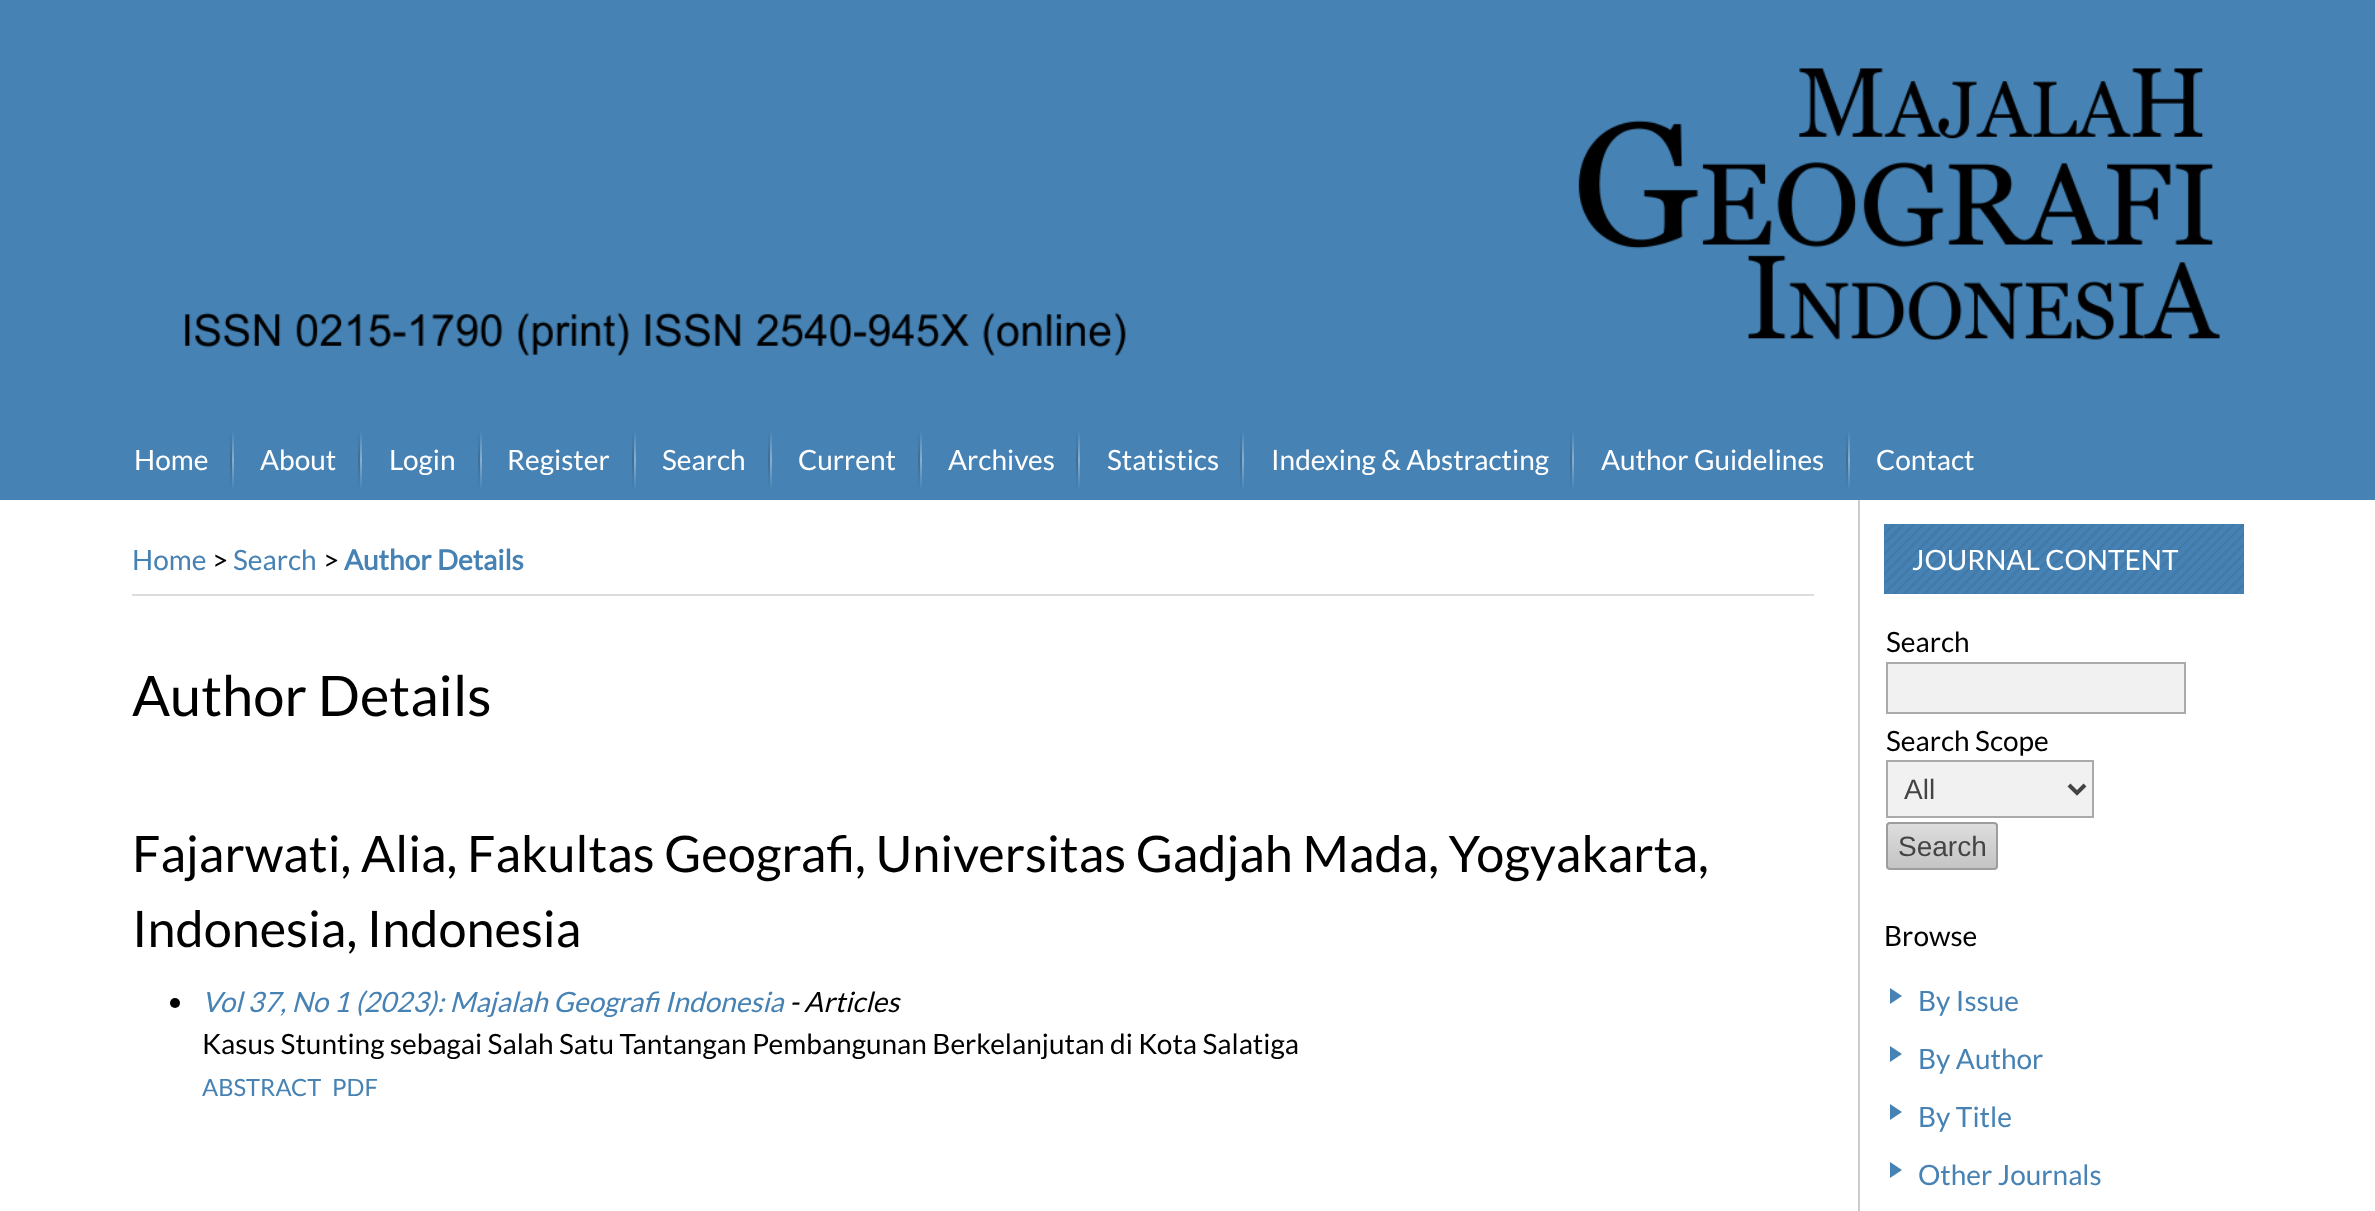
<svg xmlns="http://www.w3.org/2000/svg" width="2375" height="1211">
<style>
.a{font:28px Lato;fill:#fff}
.b{font:28px Lato;fill:#4682b4}
.c{font:28px Lato;fill:#000}
.d{font:bold 28px Lato;fill:#4682b4}
.e{font:56px Lato;fill:#000}
.f{font:50.4px Lato;fill:#000}
.g{font:italic 28px Lato;fill:#4682b4}
.h{font:italic 28px Lato;fill:#000}
.i{font:23.75px Lato;fill:#4682b4}
.j{font:28px Liberation Sans;fill:#444}
</style>
<defs>
<linearGradient id="g1" gradientUnits="userSpaceOnUse" x1="231" y1="430" x2="231" y2="490"><stop offset="0" stop-color="#4682b4"/><stop offset="0.5" stop-color="#3c6f99"/><stop offset="1" stop-color="#4682b4"/></linearGradient>
<linearGradient id="g2" gradientUnits="userSpaceOnUse" x1="233" y1="430" x2="233" y2="490"><stop offset="0" stop-color="#4682b4"/><stop offset="0.5" stop-color="#87aece"/><stop offset="1" stop-color="#4682b4"/></linearGradient>
<linearGradient id="g3" gradientUnits="userSpaceOnUse" x1="359" y1="430" x2="359" y2="490"><stop offset="0" stop-color="#4682b4"/><stop offset="0.5" stop-color="#3c6f99"/><stop offset="1" stop-color="#4682b4"/></linearGradient>
<linearGradient id="g4" gradientUnits="userSpaceOnUse" x1="361" y1="430" x2="361" y2="490"><stop offset="0" stop-color="#4682b4"/><stop offset="0.5" stop-color="#87aece"/><stop offset="1" stop-color="#4682b4"/></linearGradient>
<linearGradient id="g5" gradientUnits="userSpaceOnUse" x1="479" y1="430" x2="479" y2="490"><stop offset="0" stop-color="#4682b4"/><stop offset="0.5" stop-color="#3c6f99"/><stop offset="1" stop-color="#4682b4"/></linearGradient>
<linearGradient id="g6" gradientUnits="userSpaceOnUse" x1="481" y1="430" x2="481" y2="490"><stop offset="0" stop-color="#4682b4"/><stop offset="0.5" stop-color="#87aece"/><stop offset="1" stop-color="#4682b4"/></linearGradient>
<linearGradient id="g7" gradientUnits="userSpaceOnUse" x1="633" y1="430" x2="633" y2="490"><stop offset="0" stop-color="#4682b4"/><stop offset="0.5" stop-color="#3c6f99"/><stop offset="1" stop-color="#4682b4"/></linearGradient>
<linearGradient id="g8" gradientUnits="userSpaceOnUse" x1="635" y1="430" x2="635" y2="490"><stop offset="0" stop-color="#4682b4"/><stop offset="0.5" stop-color="#87aece"/><stop offset="1" stop-color="#4682b4"/></linearGradient>
<linearGradient id="g9" gradientUnits="userSpaceOnUse" x1="769" y1="430" x2="769" y2="490"><stop offset="0" stop-color="#4682b4"/><stop offset="0.5" stop-color="#3c6f99"/><stop offset="1" stop-color="#4682b4"/></linearGradient>
<linearGradient id="g10" gradientUnits="userSpaceOnUse" x1="771" y1="430" x2="771" y2="490"><stop offset="0" stop-color="#4682b4"/><stop offset="0.5" stop-color="#87aece"/><stop offset="1" stop-color="#4682b4"/></linearGradient>
<linearGradient id="g11" gradientUnits="userSpaceOnUse" x1="919" y1="430" x2="919" y2="490"><stop offset="0" stop-color="#4682b4"/><stop offset="0.5" stop-color="#3c6f99"/><stop offset="1" stop-color="#4682b4"/></linearGradient>
<linearGradient id="g12" gradientUnits="userSpaceOnUse" x1="921" y1="430" x2="921" y2="490"><stop offset="0" stop-color="#4682b4"/><stop offset="0.5" stop-color="#87aece"/><stop offset="1" stop-color="#4682b4"/></linearGradient>
<linearGradient id="g13" gradientUnits="userSpaceOnUse" x1="1077" y1="430" x2="1077" y2="490"><stop offset="0" stop-color="#4682b4"/><stop offset="0.5" stop-color="#3c6f99"/><stop offset="1" stop-color="#4682b4"/></linearGradient>
<linearGradient id="g14" gradientUnits="userSpaceOnUse" x1="1079" y1="430" x2="1079" y2="490"><stop offset="0" stop-color="#4682b4"/><stop offset="0.5" stop-color="#87aece"/><stop offset="1" stop-color="#4682b4"/></linearGradient>
<linearGradient id="g15" gradientUnits="userSpaceOnUse" x1="1241" y1="430" x2="1241" y2="490"><stop offset="0" stop-color="#4682b4"/><stop offset="0.5" stop-color="#3c6f99"/><stop offset="1" stop-color="#4682b4"/></linearGradient>
<linearGradient id="g16" gradientUnits="userSpaceOnUse" x1="1243" y1="430" x2="1243" y2="490"><stop offset="0" stop-color="#4682b4"/><stop offset="0.5" stop-color="#87aece"/><stop offset="1" stop-color="#4682b4"/></linearGradient>
<linearGradient id="g17" gradientUnits="userSpaceOnUse" x1="1571" y1="430" x2="1571" y2="490"><stop offset="0" stop-color="#4682b4"/><stop offset="0.5" stop-color="#3c6f99"/><stop offset="1" stop-color="#4682b4"/></linearGradient>
<linearGradient id="g18" gradientUnits="userSpaceOnUse" x1="1573" y1="430" x2="1573" y2="490"><stop offset="0" stop-color="#4682b4"/><stop offset="0.5" stop-color="#87aece"/><stop offset="1" stop-color="#4682b4"/></linearGradient>
<linearGradient id="g19" gradientUnits="userSpaceOnUse" x1="1847" y1="430" x2="1847" y2="490"><stop offset="0" stop-color="#4682b4"/><stop offset="0.5" stop-color="#3c6f99"/><stop offset="1" stop-color="#4682b4"/></linearGradient>
<linearGradient id="g20" gradientUnits="userSpaceOnUse" x1="1849" y1="430" x2="1849" y2="490"><stop offset="0" stop-color="#4682b4"/><stop offset="0.5" stop-color="#87aece"/><stop offset="1" stop-color="#4682b4"/></linearGradient>
<clipPath id="clip1"><rect x="1886" y="822" width="112" height="48" rx="4"/></clipPath>
<linearGradient id="g21" gradientUnits="userSpaceOnUse" x1="1942" y1="824" x2="1942" y2="868"><stop offset="0" stop-color="#ddd"/><stop offset="1" stop-color="#c4c4c4"/></linearGradient>
</defs>
<rect width="100%" height="100%" fill="#fff"/>
<path fill="#4682b4" d="M0 0h2375v500H0z"/>
<image href="1.png" x="184" y="68" width="2036" height="288"/>
<path fill="url(#g1)" d="M230 430h2v60H230z"/>
<path fill="url(#g2)" d="M232 430h2v60H232z"/>
<path fill="url(#g3)" d="M358 430h2v60H358z"/>
<path fill="url(#g4)" d="M360 430h2v60H360z"/>
<path fill="url(#g5)" d="M478 430h2v60H478z"/>
<path fill="url(#g6)" d="M480 430h2v60H480z"/>
<path fill="url(#g7)" d="M632 430h2v60H632z"/>
<path fill="url(#g8)" d="M634 430h2v60H634z"/>
<path fill="url(#g9)" d="M768 430h2v60H768z"/>
<path fill="url(#g10)" d="M770 430h2v60H770z"/>
<path fill="url(#g11)" d="M918 430h2v60H918z"/>
<path fill="url(#g12)" d="M920 430h2v60H920z"/>
<path fill="url(#g13)" d="M1076 430h2v60H1076z"/>
<path fill="url(#g14)" d="M1078 430h2v60H1078z"/>
<path fill="url(#g15)" d="M1240 430h2v60H1240z"/>
<path fill="url(#g16)" d="M1242 430h2v60H1242z"/>
<path fill="url(#g17)" d="M1570 430h2v60H1570z"/>
<path fill="url(#g18)" d="M1572 430h2v60H1572z"/>
<path fill="url(#g19)" d="M1846 430h2v60H1846z"/>
<path fill="url(#g20)" d="M1848 430h2v60H1848z"/>
<path fill="#dcdcdc" d="M132 594h1682v2H132z"/>
<circle fill="#000" cx="175" cy="1003" r="5"/>
<path fill="#ccc" d="M1858 500h2v711H1858z"/>
<path fill="#4682b4" d="M1884 524h360v70H1884z"/>
<image href="2.png" x="1884" y="524" width="360" height="70"/>
<path fill="#f1f1f1" stroke="#aaa" stroke-width="2" d="M1887 663h298v50H1887z"/>
<path fill="#f1f1f1" stroke="#aaa" stroke-width="2" d="M1887 761h206v56H1887z"/>
<path fill="none" stroke="#444" stroke-width="4" d="M2069 785l8 8l8-8"/>
<g clip-path="url(#clip1)">
<path fill="url(#g21)" d="M1886 824h112v44H1886z"/>
</g>
<rect fill="none" stroke="#9d9d9d" stroke-width="2" x="1887" y="823" width="110" height="46" rx="3"/>
<path fill="#4682b4" d="M1890 1004v-16l12 8z"/>
<path fill="#4682b4" d="M1890 1062v-16l12 8z"/>
<path fill="#4682b4" d="M1890 1120v-16l12 8z"/>
<path fill="#4682b4" d="M1890 1178v-16l12 8z"/>
<text class="a" x="134" y="470">Home</text>
<text class="a" x="260" y="470">About</text>
<text class="a" x="389" y="470">Login</text>
<text class="a" x="507" y="470">Register</text>
<text class="a" x="662" y="470">Search</text>
<text class="a" x="798" y="470">Current</text>
<text class="a" x="948" y="470">Archives</text>
<text class="a" x="1107" y="470">Statistics</text>
<text class="a" x="1271" y="470">Indexing &amp; Abstracting</text>
<text class="a" x="1601" y="470">Author Guidelines</text>
<text class="a" x="1876" y="470">Contact</text>
<text class="b" x="132" y="570">Home</text>
<text class="c" x="212" y="570">&gt;</text>
<text class="b" x="233" y="570">Search</text>
<text class="c" x="323" y="570">&gt;</text>
<text class="d" x="344" y="570">Author Details</text>
<text class="e" x="132" y="716">Author Details</text>
<text class="f" x="132" y="872">Fajarwati, Alia, Fakultas Geografi, Universitas Gadjah Mada, Yogyakarta,</text>
<text class="f" x="132" y="947">Indonesia, Indonesia</text>
<text class="g" x="202" y="1012">Vol 37, No 1 (2023): Majalah Geografi Indonesia</text>
<text class="h" x="789" y="1012">- Articles</text>
<text class="c" x="202" y="1054">Kasus Stunting sebagai Salah Satu Tantangan Pembangunan Berkelanjutan di Kota Salatiga</text>
<text class="i" x="202" y="1096">ABSTRACT</text>
<text class="i" x="332" y="1096">PDF</text>
<text class="a" x="1912" y="570">JOURNAL CONTENT</text>
<text class="c" x="1886" y="652">Search</text>
<text class="c" x="1886" y="751">Search Scope</text>
<text class="j" x="1904" y="799">All</text>
<text class="j" x="1898" y="856">Search</text>
<text class="c" x="1884" y="946">Browse</text>
<text class="b" x="1918" y="1011">By Issue</text>
<text class="b" x="1918" y="1069">By Author</text>
<text class="b" x="1918" y="1127">By Title</text>
<text class="b" x="1918" y="1185">Other Journals</text>
</svg>
